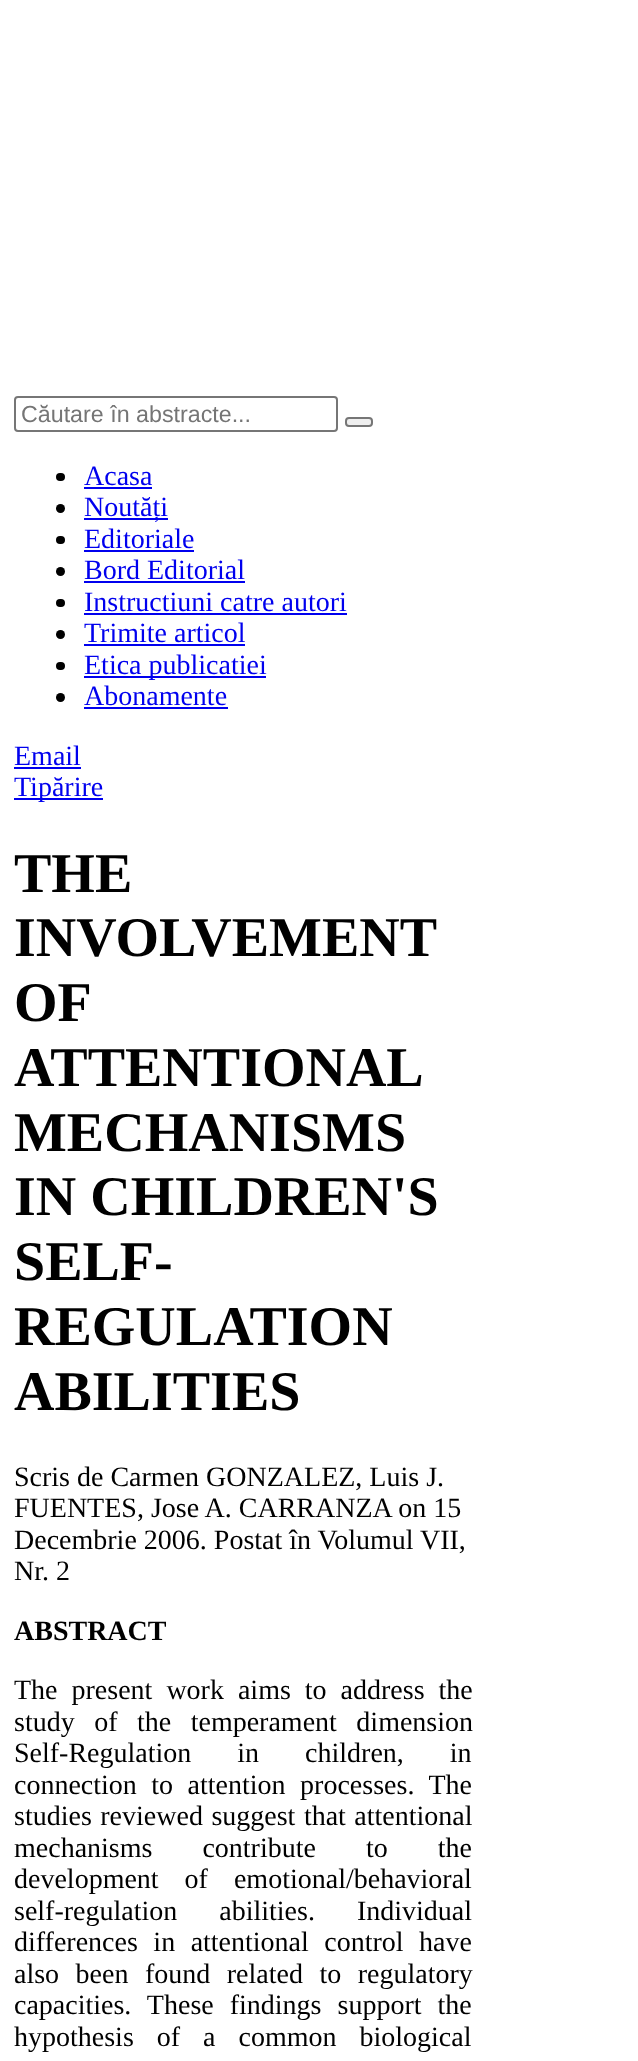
<svg xmlns="http://www.w3.org/2000/svg" width="638" height="2061">
<style>
.a{font:23.25px Liberation Sans;fill:#757575}
.b{font:28px Liberation Serif;fill:#00e}
.c{font:bold 56px Liberation Serif;fill:#000}
.d{font:28px Liberation Serif;fill:#000}
.e{font:bold 28px Liberation Serif;fill:#000}
</style>
<rect width="100%" height="100%" fill="#fff"/>
<rect fill="none" stroke="#767676" stroke-width="2" x="15" y="397" width="322" height="34" rx="3"/>
<rect fill="#efefef" stroke="#767676" stroke-width="2" x="346" y="418" width="26" height="8" rx="3"/>
<rect fill="#000" x="56" y="473" width="9" height="8" rx="4"/>
<path fill="#00e" d="M84 487h68v2H84z"/>
<circle fill="#000" cx="60.5" cy="508.5" r="4.5"/>
<path fill="#00e" d="M84 518h84v2H84z"/>
<rect fill="#000" x="56" y="536" width="9" height="8" rx="4"/>
<path fill="#00e" d="M84 550h110v2H84z"/>
<circle fill="#000" cx="60.5" cy="571.5" r="4.5"/>
<path fill="#00e" d="M84 581h161v2H84z"/>
<rect fill="#000" x="56" y="599" width="9" height="8" rx="4"/>
<path fill="#00e" d="M84 613h263v2H84z"/>
<circle fill="#000" cx="60.5" cy="634.5" r="4.5"/>
<path fill="#00e" d="M84 644h161v2H84z"/>
<rect fill="#000" x="56" y="662" width="9" height="8" rx="4"/>
<path fill="#00e" d="M84 676h182v2H84z"/>
<circle fill="#000" cx="60.5" cy="697.5" r="4.5"/>
<path fill="#00e" d="M84 707h144v2H84z"/>
<path fill="#00e" d="M14 767h67v2H14z"/>
<path fill="#00e" d="M14 798h89v2H14z"/>
<text class="a" x="21" y="422">Căutare în abstracte...</text>
<text class="b" x="84" y="485">Acasa</text>
<text class="b" x="84" y="516">Noutăți</text>
<text class="b" x="84" y="548">Editoriale</text>
<text class="b" x="84" y="579">Bord Editorial</text>
<text class="b" x="84" y="611">Instructiuni catre autori</text>
<text class="b" x="84" y="642">Trimite articol</text>
<text class="b" x="84" y="674">Etica publicatiei</text>
<text class="b" x="84" y="705">Abonamente</text>
<text class="b" x="14" y="765">Email</text>
<text class="b" x="14" y="796">Tipărire</text>
<text class="c" x="14" y="892">THE</text>
<text class="c" x="14" y="956">INVOLVEMENT</text>
<text class="c" x="14" y="1021">OF</text>
<text class="c" x="14" y="1086">ATTENTIONAL</text>
<text class="c" x="14" y="1151">MECHANISMS</text>
<text class="c" x="14" y="1215">IN CHILDREN'S</text>
<text class="c" x="14" y="1280">SELF-</text>
<text class="c" x="14" y="1345">REGULATION</text>
<text class="c" x="14" y="1410">ABILITIES</text>
<text class="d" x="14" y="1486">Scris de Carmen GONZALEZ, Luis J.</text>
<text class="d" x="14" y="1517">FUENTES, Jose A. CARRANZA on 15</text>
<text class="d" x="14" y="1549">Decembrie 2006. Postat în Volumul VII,</text>
<text class="d" x="14" y="1580">Nr. 2</text>
<text class="e" x="14" y="1640">ABSTRACT</text>
<text class="d" x="14" y="1699" word-spacing="7">The present work aims to address the</text>
<text class="d" x="14" y="1731" word-spacing="12.5">study of the temperament dimension</text>
<text class="d" x="14" y="1762" word-spacing="39">Self-Regulation in children, in</text>
<text class="d" x="14" y="1794" word-spacing="7.5">connection to attention processes. The</text>
<text class="d" x="14" y="1825" word-spacing="1.5">studies reviewed suggest that attentional</text>
<text class="d" x="14" y="1857" word-spacing="43">mechanisms contribute to the</text>
<text class="d" x="14" y="1888" word-spacing="19">development of emotional/behavioral</text>
<text class="d" x="14" y="1920" word-spacing="35">self-regulation abilities. Individual</text>
<text class="d" x="14" y="1951" word-spacing="8.5">differences in attentional control have</text>
<text class="d" x="14" y="1983" word-spacing="9.5">also been found related to regulatory</text>
<text class="d" x="14" y="2014" word-spacing="9">capacities. These findings support the</text>
<text class="d" x="14" y="2046" word-spacing="16">hypothesis of a common biological</text>
</svg>
